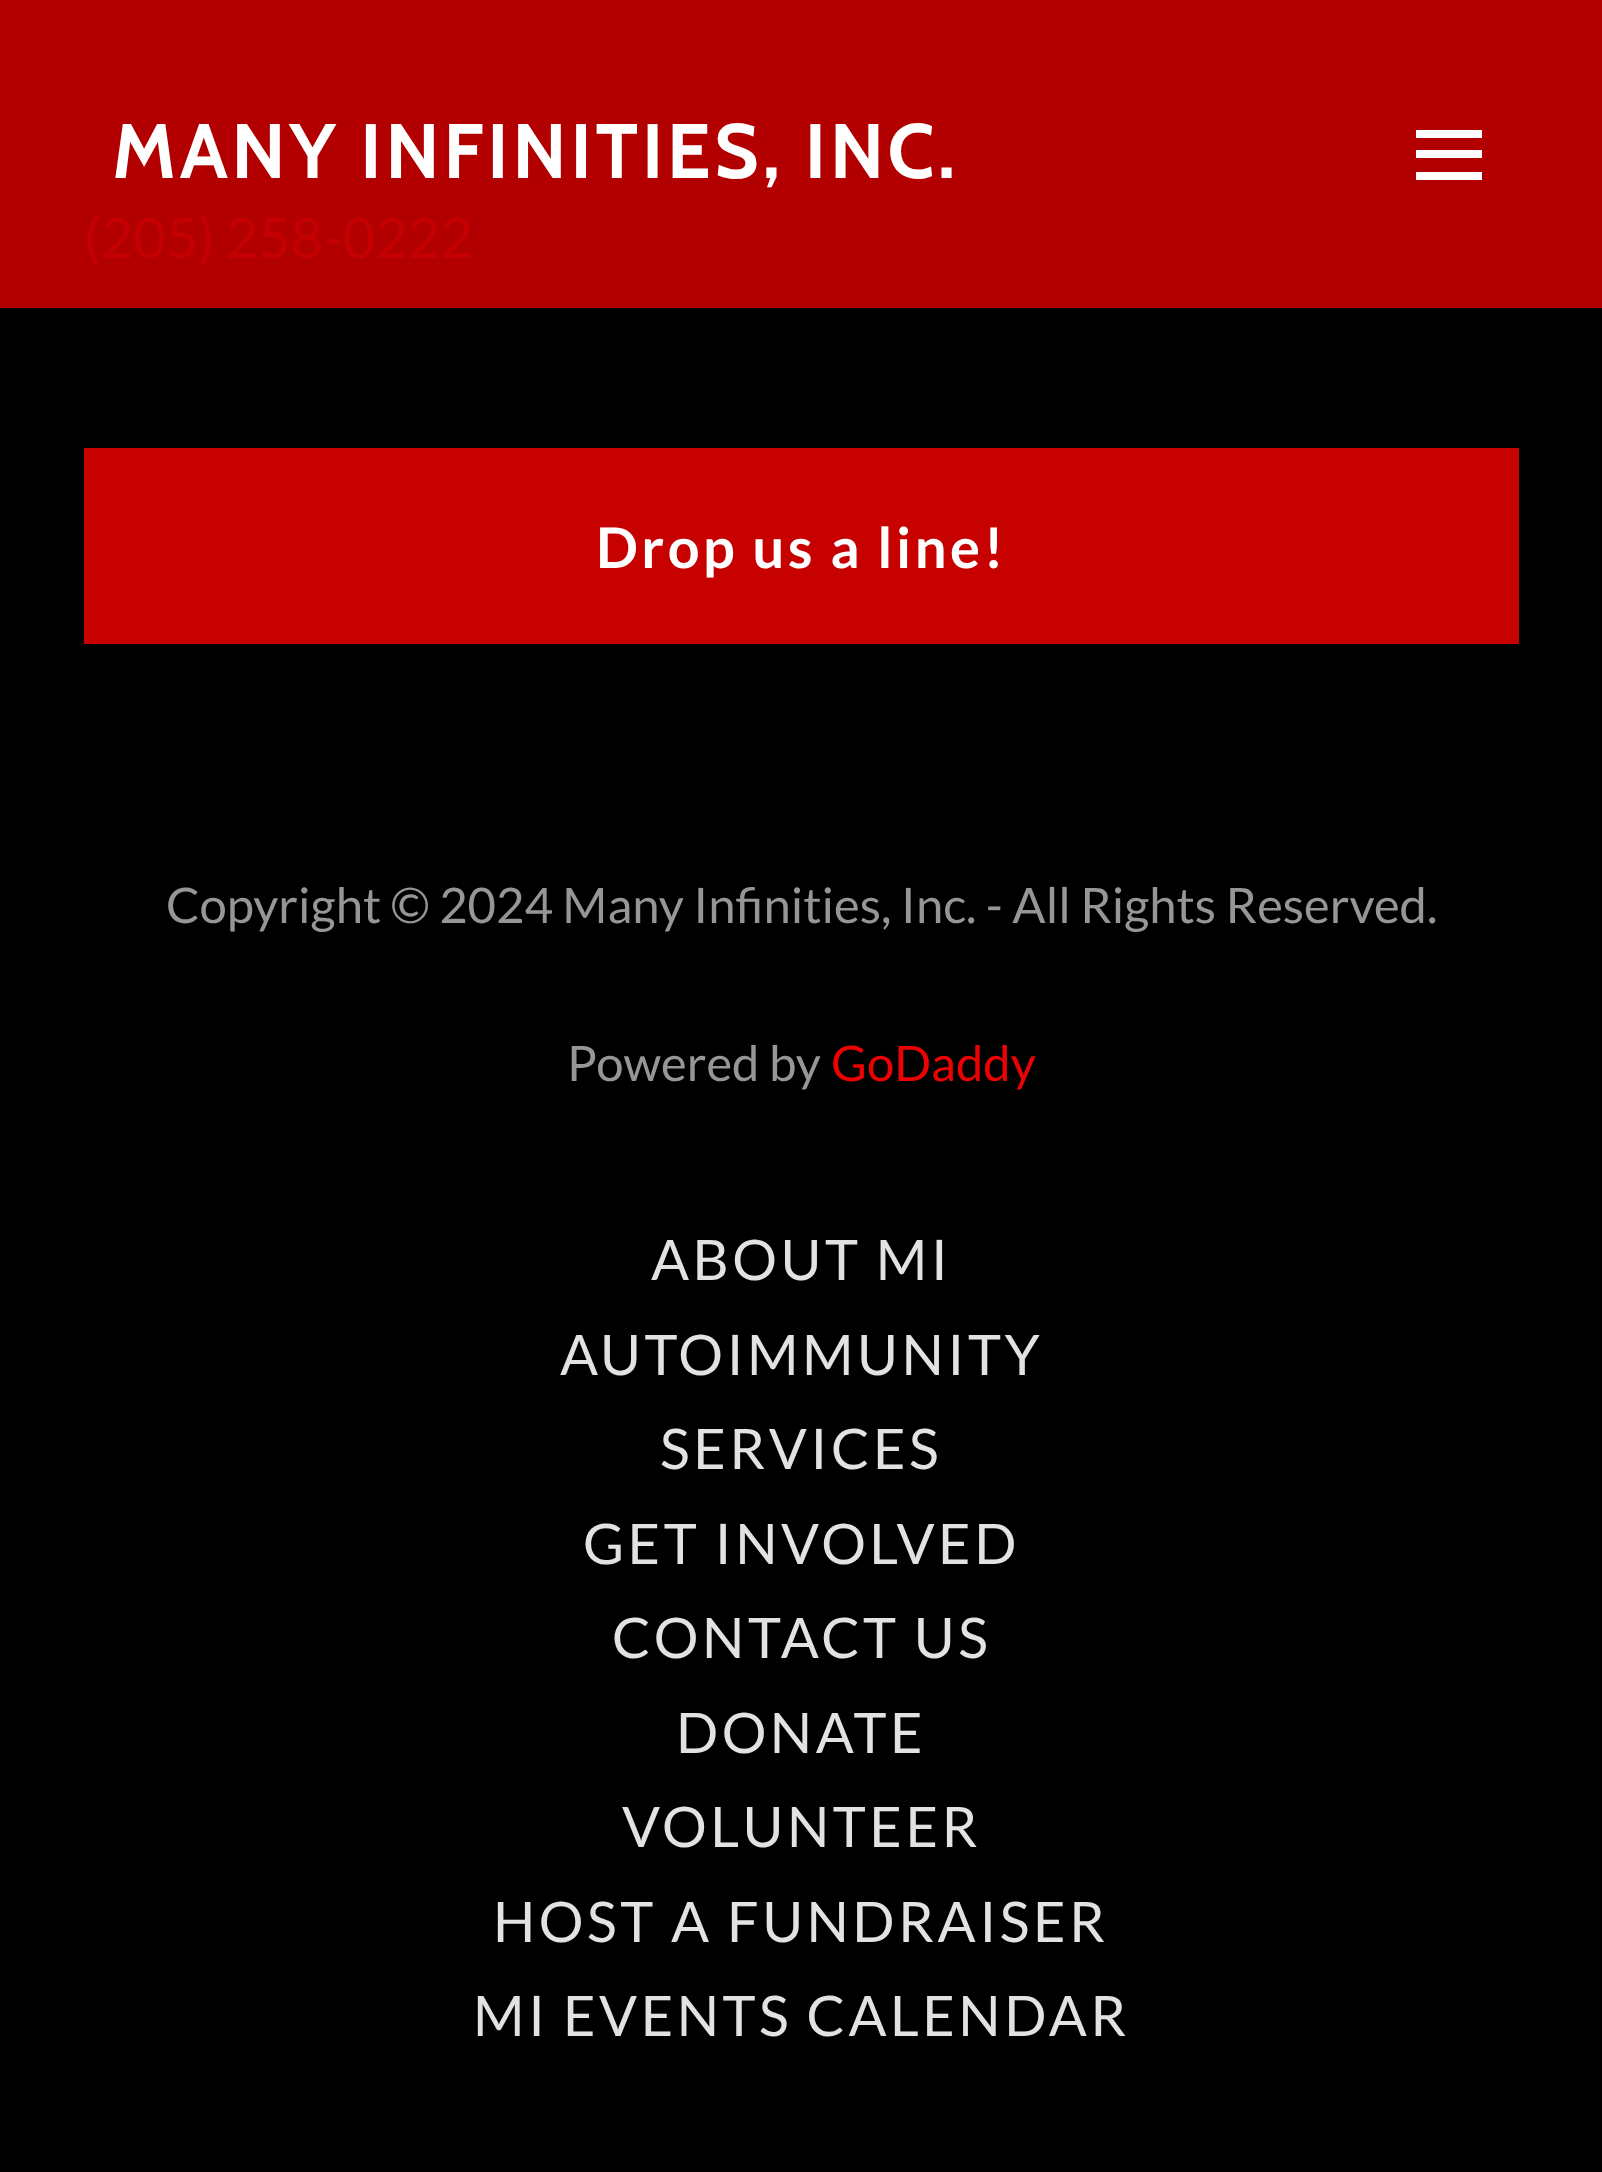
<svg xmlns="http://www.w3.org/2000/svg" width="1602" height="2172">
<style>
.a{font:bold 77px Cabin;letter-spacing:3.5px;fill:#fff}
.b{font:56px Lato;fill:#c40000}
.c{font:bold 56px Lato;letter-spacing:3.5px;fill:#fff}
.d{font:49px Lato;fill:#969696}
.e{font:49px Lato;fill:#eb0202}
.f{font:56px Lato;letter-spacing:3.5px;fill:#e2e2e2}
</style>
<rect width="100%" height="100%" fill="#000"/>
<path fill="#b20000" d="M0 0h1602v308H0z"/>
<path fill="#fff" d="M1416 130h66v8H1416z"/>
<path fill="#fff" d="M1416 150h66v8H1416z"/>
<path fill="#fff" d="M1416 172h66v8H1416z"/>
<path fill="#c70000" d="M84 448h1435v196H84z"/>
<text class="a" x="112" y="178">MANY INFINITIES, INC.</text>
<text class="b" x="84" y="258">(205) 258-0222</text>
<text class="c" x="596" y="568">Drop us a line!</text>
<text class="d" x="166" y="923">Copyright © 2024 Many Infinities, Inc. - All Rights Reserved.</text>
<text class="d" x="567" y="1081">Powered by</text>
<text class="e" x="831" y="1081">GoDaddy</text>
<text class="f" x="651" y="1280">ABOUT MI</text>
<text class="f" x="560" y="1375">AUTOIMMUNITY</text>
<text class="f" x="660" y="1469">SERVICES</text>
<text class="f" x="583" y="1564">GET INVOLVED</text>
<text class="f" x="612" y="1658">CONTACT US</text>
<text class="f" x="676" y="1753">DONATE</text>
<text class="f" x="622" y="1847">VOLUNTEER</text>
<text class="f" x="493" y="1942">HOST A FUNDRAISER</text>
<text class="f" x="473" y="2036">MI EVENTS CALENDAR</text>
</svg>
